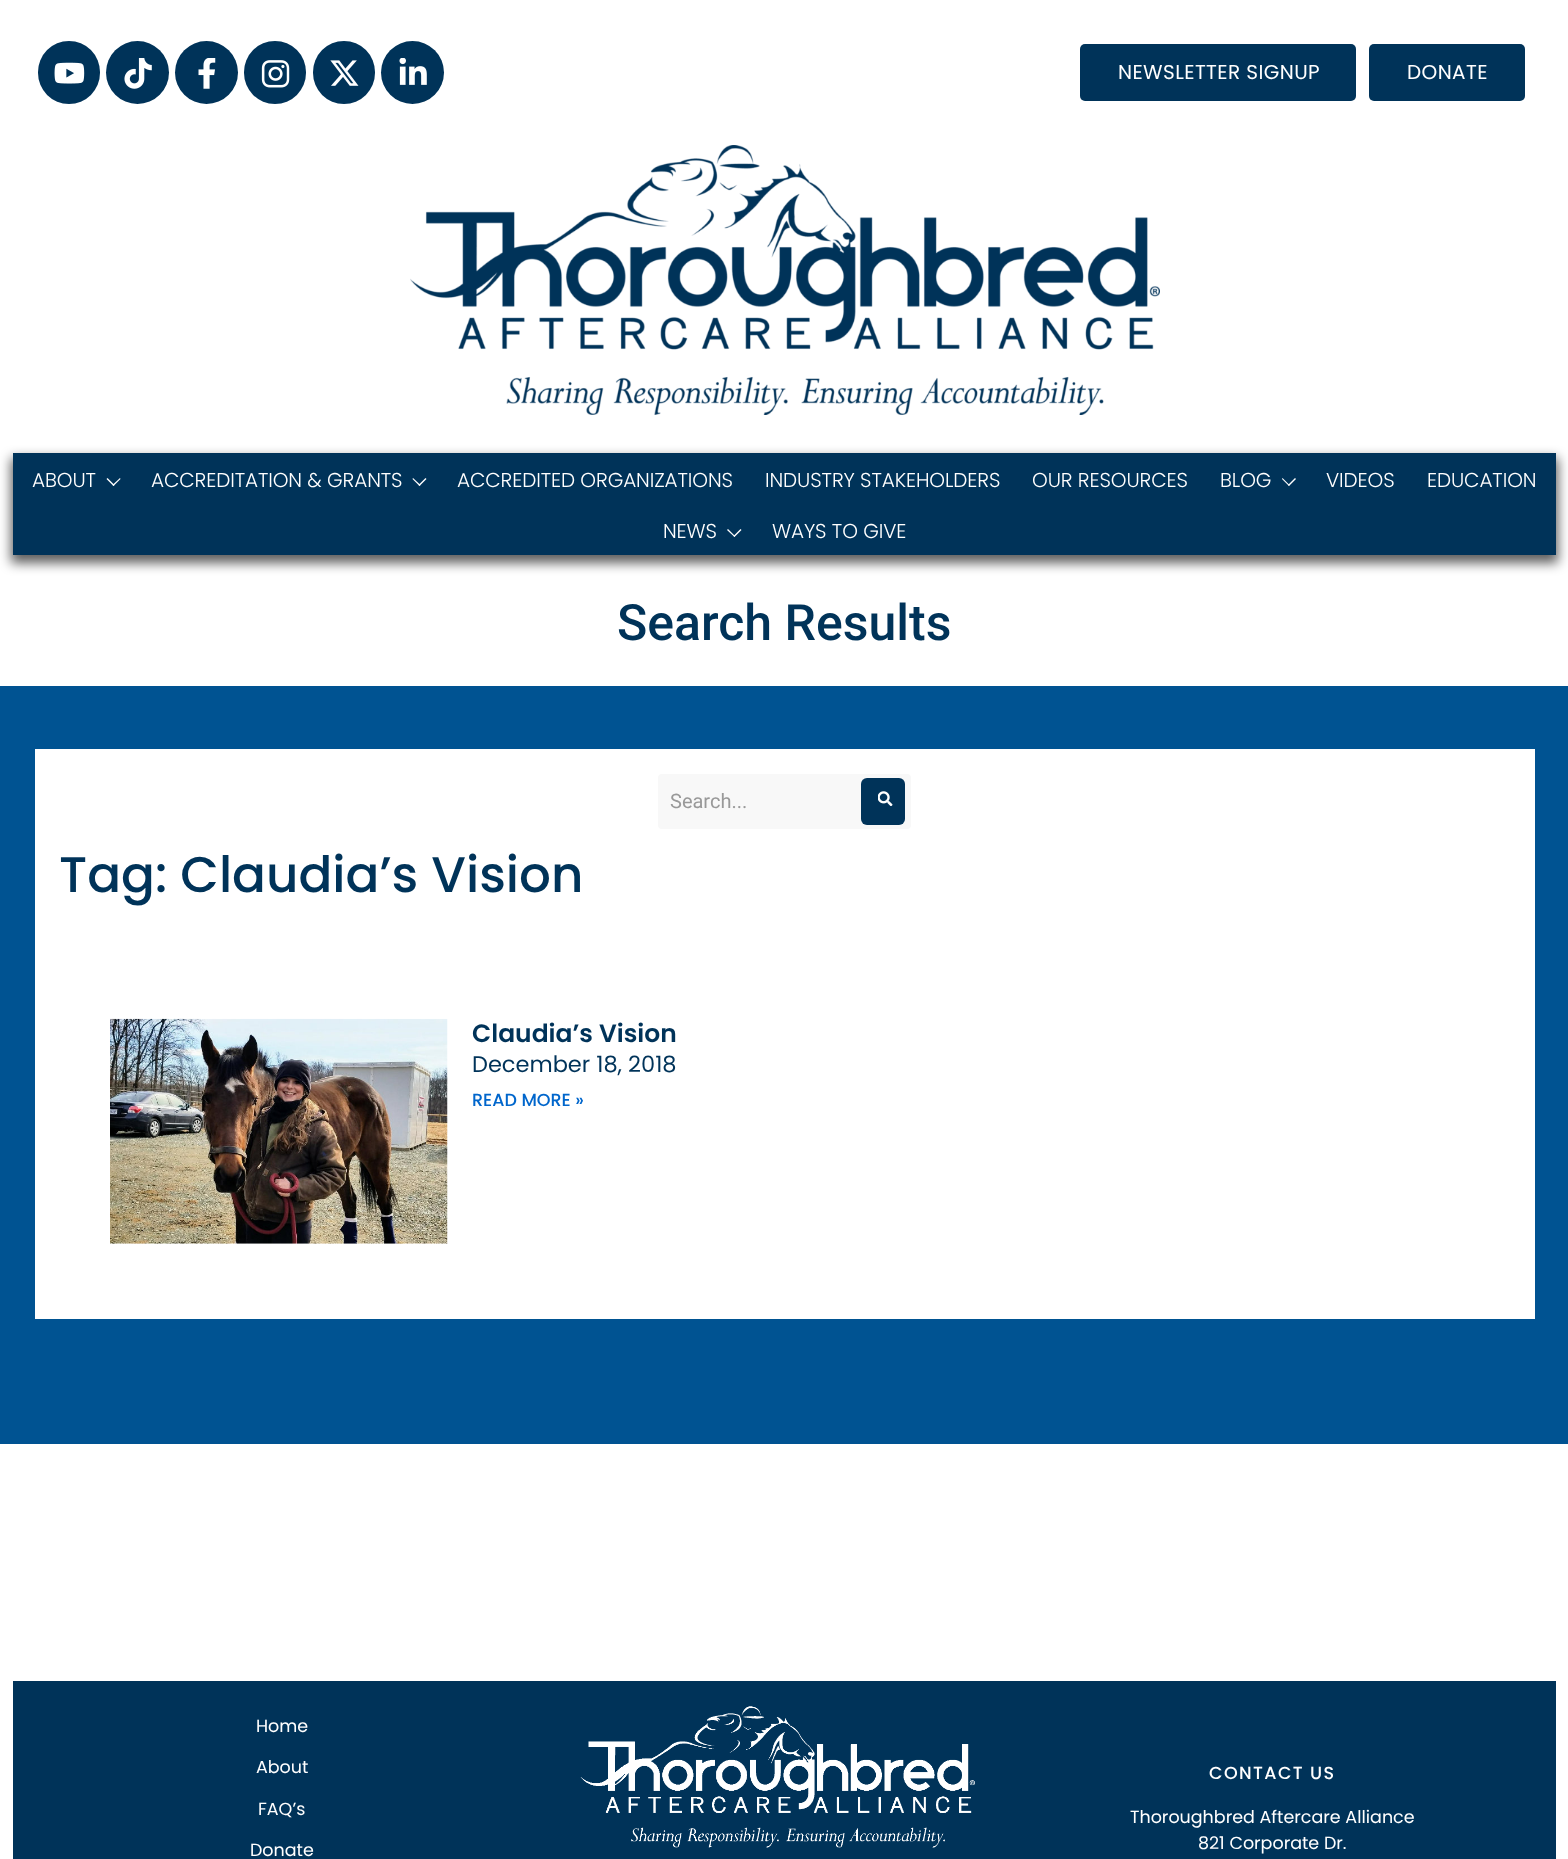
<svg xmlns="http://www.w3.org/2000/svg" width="1568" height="1859">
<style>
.a{font:20px Poppins;letter-spacing:0.4px;fill:#fff}
.b{font:300 20px Poppins;letter-spacing:-0.1px;fill:#fff}
.c{font:500 50px Roboto;fill:#003359}
.d{font:20px Roboto;fill:#999}
.e{font:500 50px Poppins;fill:#003359}
.f{font:600 25px Poppins;fill:#003359}
.g{font:22.5px Poppins;fill:#003359}
.h{font:500 17.5px Poppins;fill:#06c}
.i{font:17.5px Poppins;fill:#fff}
.j{font:500 17.5px Poppins;letter-spacing:1.4px;fill:#fff}
</style>
<rect width="100%" height="100%" fill="#fff"/>
<rect fill="#003359" x="38" y="41" width="62" height="63" rx="31"/>
<image href="1.png" x="54" y="62" width="31" height="22"/>
<circle fill="#003359" cx="137.5" cy="72.5" r="31.5"/>
<image href="2.png" x="124" y="58" width="28" height="31"/>
<circle fill="#003359" cx="206.5" cy="72.5" r="31.5"/>
<image href="3.png" x="198" y="58" width="18" height="31"/>
<rect fill="#003359" x="244" y="41" width="62" height="63" rx="31"/>
<image href="4.png" x="261" y="60" width="29" height="28"/>
<rect fill="#003359" x="313" y="41" width="62" height="63" rx="31"/>
<image href="5.png" x="330" y="60" width="29" height="26"/>
<circle fill="#003359" cx="412.5" cy="72.5" r="31.5"/>
<image href="6.png" x="399" y="58" width="28" height="27"/>
<rect fill="#003359" x="1080" y="44" width="276" height="57" rx="5"/>
<rect fill="#003359" x="1369" y="44" width="156" height="57" rx="5"/>
<image href="7.png" x="410" y="145" width="750" height="270"/>
<path fill="#000000a1" filter="blur(6px)" d="M11 458h1547v105H11z"/>
<path fill="#003359" d="M13 453h1543v102H13z"/>
<path fill="#fff" d="M120.5 479l-7 7l-1-1l7.5-7z"/>
<path fill="#fff" d="M114.5 485l-1 1l-7-7l1-1z"/>
<path fill="#fff" d="M426.5 479l-7 7l-1-1l7-7z"/>
<path fill="#fff" d="M420.5 485l-1 1l-7-7l.5-1z"/>
<path fill="#fff" d="M1296 479l-7 7l-1-1l7-7z"/>
<path fill="#fff" d="M1289.5 485l-.5 1l-7-7l.5-1z"/>
<path fill="#fff" d="M741.5 530l-7 7l-1-1l7-7z"/>
<path fill="#fff" d="M735 536l-.5 1l-7.5-7l1-1z"/>
<path fill="#005392" d="M0 686h1568v758H0z"/>
<path fill="#fff" d="M35 749h1500v570H35z"/>
<rect fill="#f8f8f8" x="658" y="774" width="253" height="55" rx="4"/>
<rect fill="#003359" x="861" y="778" width="44" height="47" rx="6"/>
<image href="8.png" x="878" y="791" width="15" height="15"/>
<image href="9.png" x="110" y="1018" width="338" height="226"/>
<path fill="#003359" d="M13 1681h1543v178H13z"/>
<image href="10.png" x="580" y="1706" width="395" height="142"/>
<text class="a" x="1118" y="79">NEWSLETTER SIGNUP</text>
<text class="a" x="1407" y="79">DONATE</text>
<text class="b" x="32" y="487">ABOUT</text>
<text class="b" x="151" y="487">ACCREDITATION &amp; GRANTS</text>
<text class="b" x="457" y="487">ACCREDITED ORGANIZATIONS</text>
<text class="b" x="765" y="487">INDUSTRY STAKEHOLDERS</text>
<text class="b" x="1032" y="487">OUR RESOURCES</text>
<text class="b" x="1220" y="487">BLOG</text>
<text class="b" x="1326" y="487">VIDEOS</text>
<text class="b" x="1427" y="487">EDUCATION</text>
<text class="b" x="663" y="538">NEWS</text>
<text class="b" x="772" y="538">WAYS TO GIVE</text>
<text class="c" x="617" y="640">Search Results</text>
<text class="d" x="670" y="808">Search...</text>
<text class="e" x="59" y="892">Tag: Claudia’s Vision</text>
<text class="f" x="472" y="1042">Claudia’s Vision</text>
<text class="g" x="472" y="1072">December 18, 2018</text>
<text class="h" x="472" y="1106">READ MORE »</text>
<text class="i" x="256" y="1732">Home</text>
<text class="i" x="256" y="1773">About</text>
<text class="i" x="258" y="1815">FAQ’s</text>
<text class="i" x="250" y="1856">Donate</text>
<text class="j" x="1209" y="1779">CONTACT US</text>
<text class="i" x="1130" y="1823">Thoroughbred Aftercare Alliance</text>
<text class="i" x="1198" y="1849">821 Corporate Dr.</text>
</svg>
